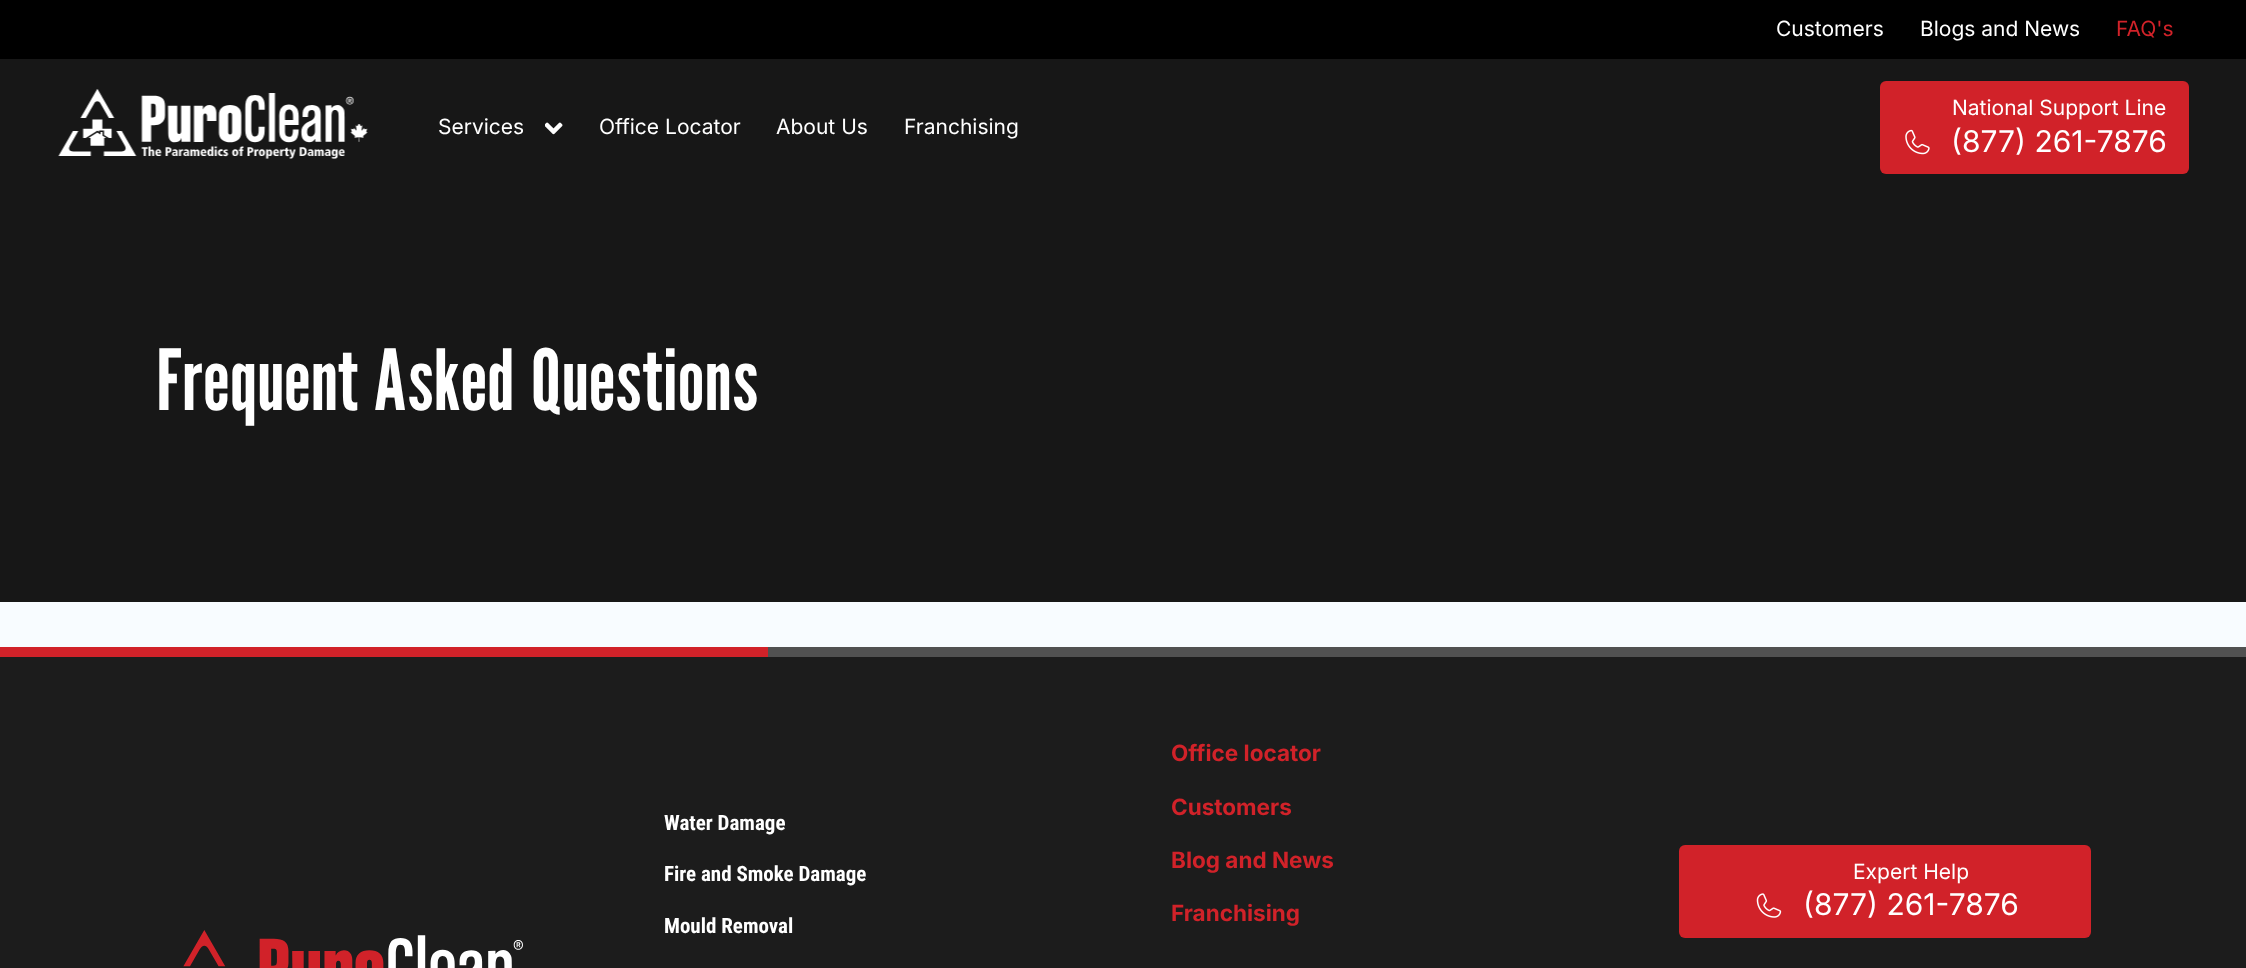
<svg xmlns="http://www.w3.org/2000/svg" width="2246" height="968">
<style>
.a{font:21px Inter;fill:#fff}
.b{font:21px Inter;fill:#d12229}
.c{font:30px Inter;fill:#fff}
.d{font:84px League Gothic;letter-spacing:1.5px;fill:#fff}
.e{font:bold 21px Roboto Condensed;fill:#fff}
.f{font:bold 22.5px Inter;fill:#d12229}
</style>
<rect width="100%" height="100%" fill="#f8fcff"/>
<path fill="#000" d="M0 0h2246v59H0z"/>
<path fill="#171717" d="M0 59h2246v543H0z"/>
<image href="1.png" x="58" y="89" width="310" height="70"/>
<image href="2.png" x="545" y="122" width="18" height="13"/>
<rect fill="#d12229" x="1880" y="81" width="309" height="93" rx="6"/>
<image href="3.png" x="1905" y="129" width="25" height="26"/>
<path fill="#d12229" d="M0 647h768v10H0z"/>
<path fill="#515151" d="M768 647h1478v10H768z"/>
<path fill="#1c1c1c" d="M0 657h2246v311H0z"/>
<rect fill="#d12229" x="1679" y="845" width="412" height="93" rx="6"/>
<image href="4.png" x="1756" y="893" width="26" height="25"/>
<image href="5.png" x="183" y="930" width="340" height="38"/>
<text class="a" x="1776" y="36">Customers</text>
<text class="a" x="1920" y="36">Blogs and News</text>
<text class="b" x="2116" y="36">FAQ's</text>
<text class="a" x="438" y="134">Services</text>
<text class="a" x="599" y="134">Office Locator</text>
<text class="a" x="776" y="134">About Us</text>
<text class="a" x="904" y="134">Franchising</text>
<text class="a" x="1952" y="115">National Support Line</text>
<text class="c" x="1951" y="152">(877) 261-7876</text>
<text class="d" x="156" y="410">Frequent Asked Questions</text>
<text class="e" x="664" y="830">Water Damage</text>
<text class="e" x="664" y="881">Fire and Smoke Damage</text>
<text class="e" x="664" y="933">Mould Removal</text>
<text class="f" x="1171" y="761">Office locator</text>
<text class="f" x="1171" y="815">Customers</text>
<text class="f" x="1171" y="868">Blog and News</text>
<text class="f" x="1171" y="921">Franchising</text>
<text class="a" x="1853" y="879">Expert Help</text>
<text class="c" x="1803" y="915">(877) 261-7876</text>
</svg>
